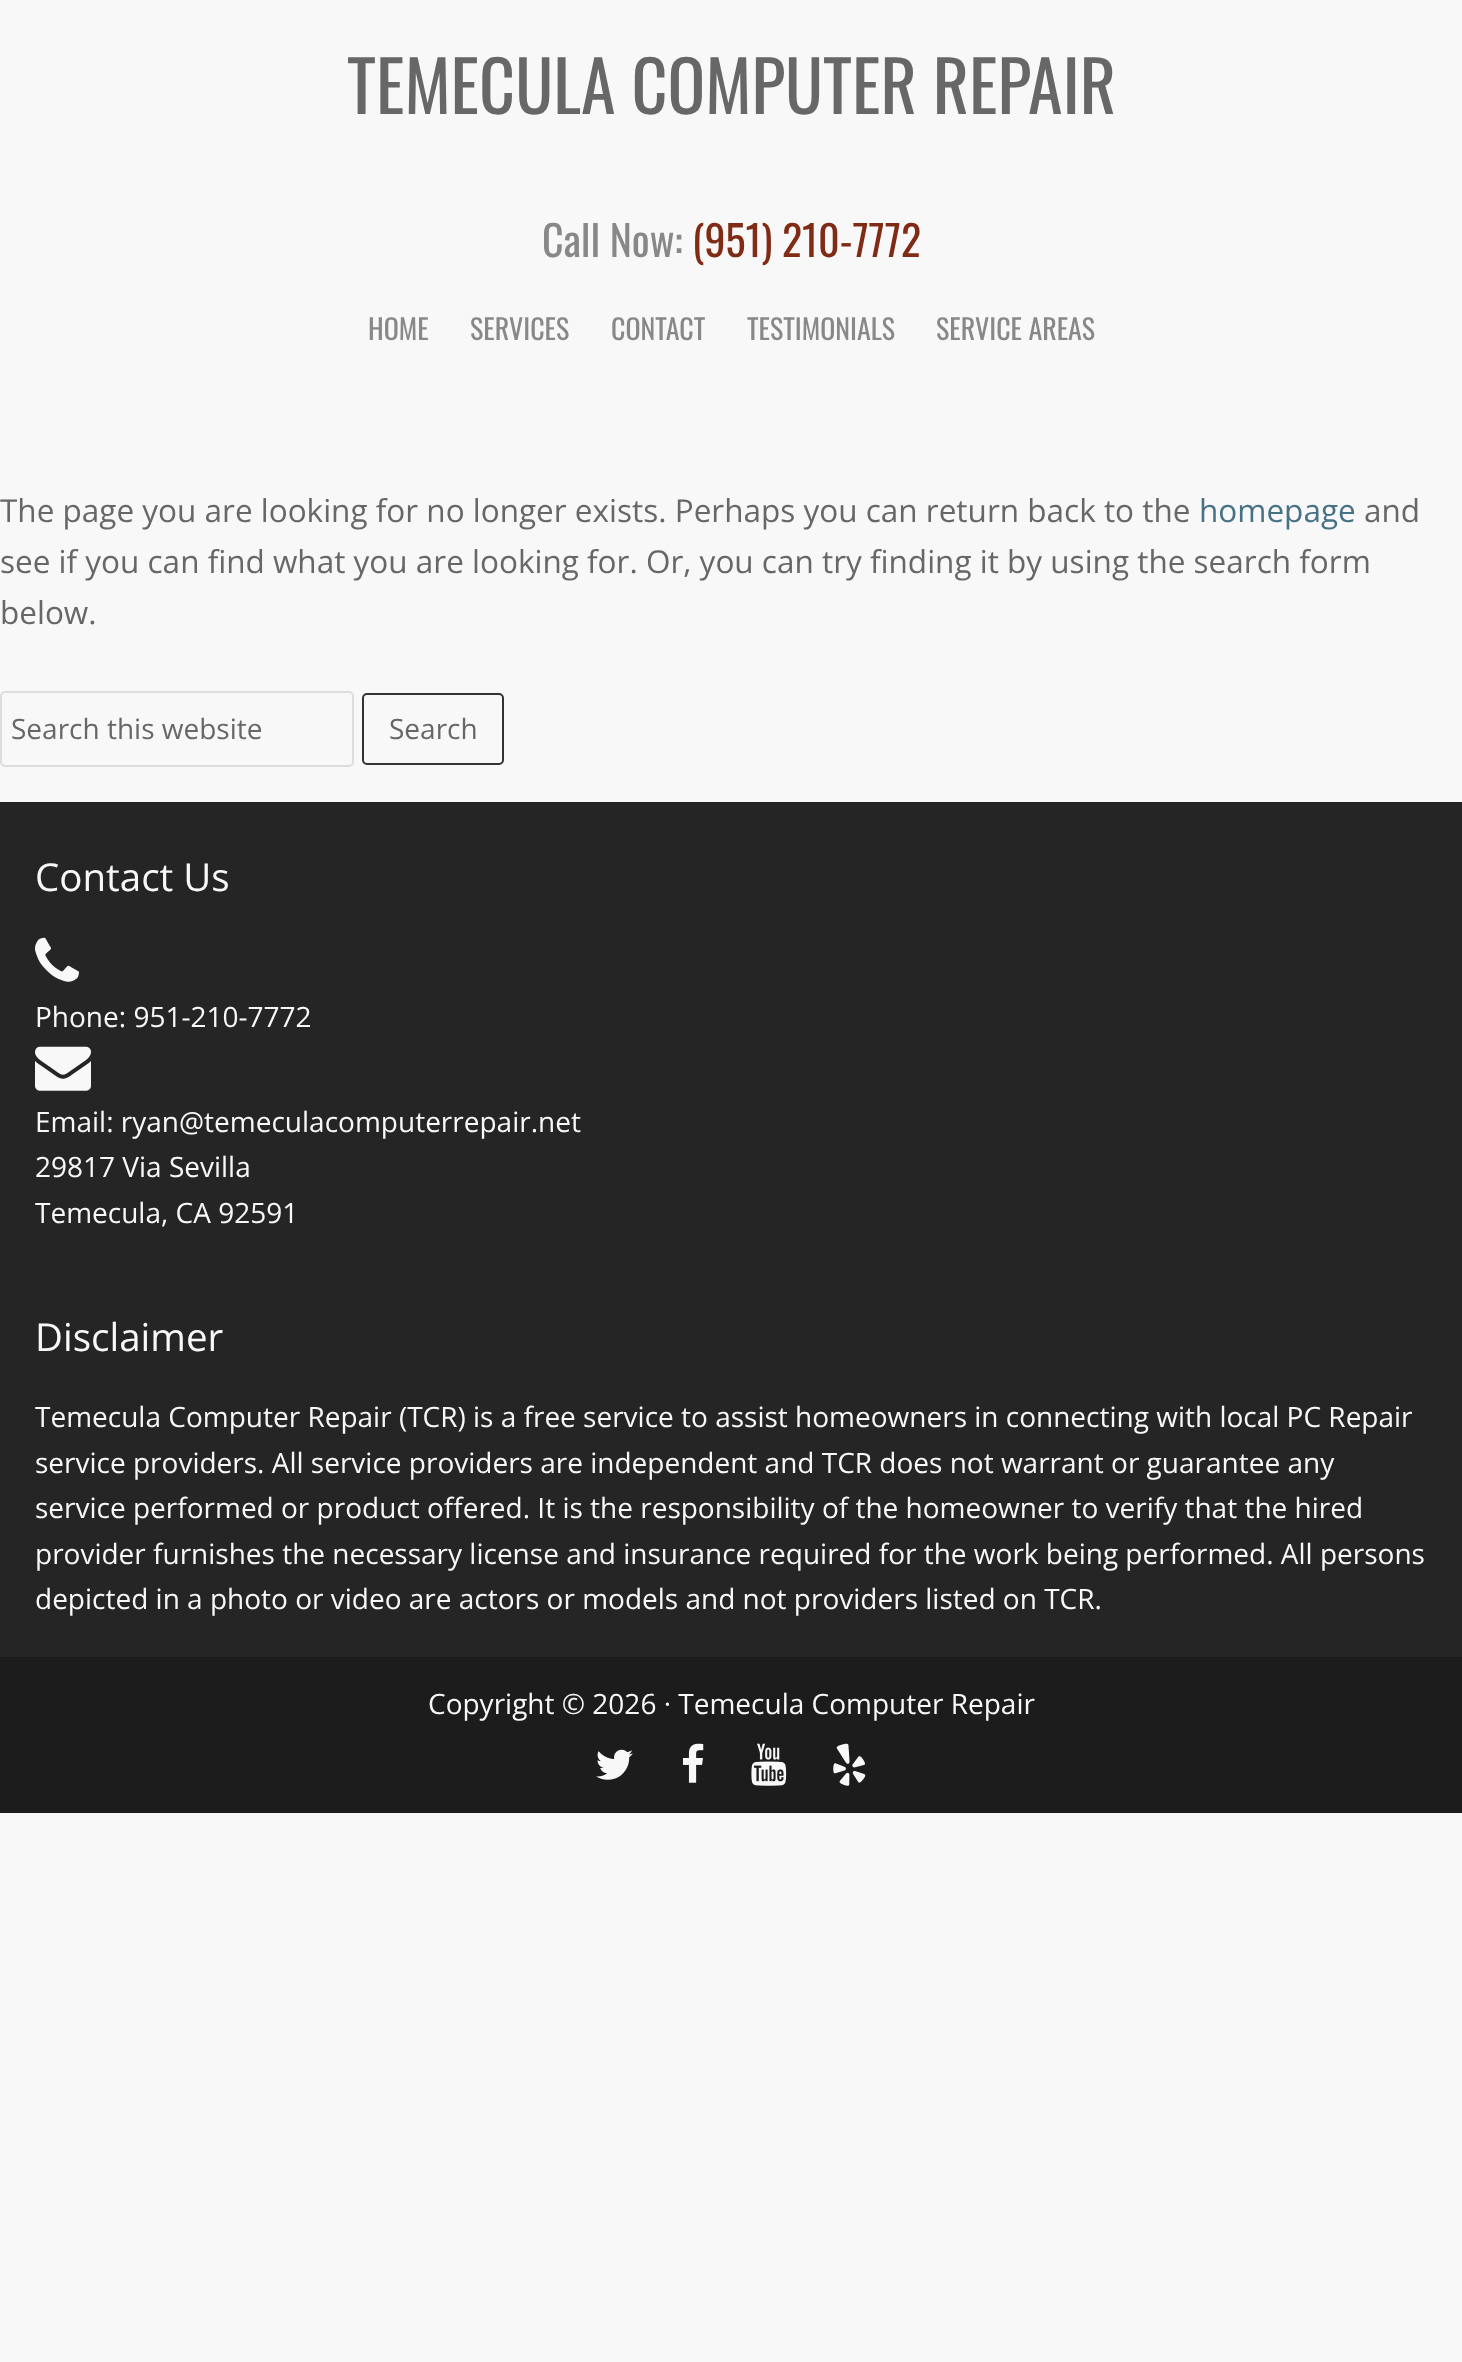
<svg xmlns="http://www.w3.org/2000/svg" width="1462" height="2362">
<style>
.a{font:70px Oswald;fill:#676767}
.b{font:42px Oswald;fill:#888}
.c{font:42px Oswald;fill:#802b15}
.d{font:28px Oswald;fill:#888}
.e{font:31.5px Open Sans;fill:#676767}
.f{font:31.5px Open Sans;fill:#477286}
.g{font:28px Open Sans;fill:#676767}
.h{font:38.5px Open Sans;fill:#f8f8f8}
.i{font:28px Open Sans;fill:#f8f8f8}
</style>
<rect width="100%" height="100%" fill="#f8f8f8"/>
<rect fill="none" stroke="#ddd" stroke-width="2" x="1" y="692" width="352" height="74" rx="4"/>
<rect fill="none" stroke="#333" stroke-width="2" x="363" y="694" width="140" height="70" rx="4"/>
<path fill="#252525" d="M0 802h1462v855H0z"/>
<image href="1.png" x="35" y="937" width="44" height="45"/>
<image href="2.png" x="35" y="1046" width="56" height="45"/>
<path fill="#1c1c1c" d="M0 1657h1462v156H0z"/>
<image href="3.png" x="596" y="1749" width="37" height="31"/>
<image href="4.png" x="682" y="1743" width="22" height="40"/>
<image href="5.png" x="751" y="1743" width="36" height="43"/>
<image href="6.png" x="833" y="1743" width="33" height="43"/>
<text class="a" x="347" y="114">TEMECULA COMPUTER REPAIR</text>
<text class="b" x="542" y="257">Call Now:</text>
<text class="c" x="692" y="257">(951) 210-7772</text>
<text class="d" x="368" y="340">HOME</text>
<text class="d" x="470" y="340">SERVICES</text>
<text class="d" x="611" y="340">CONTACT</text>
<text class="d" x="747" y="340">TESTIMONIALS</text>
<text class="d" x="936" y="340">SERVICE AREAS</text>
<text class="e" x="0" y="522">The page you are looking for no longer exists. Perhaps you can return back to the</text>
<text class="f" x="1199" y="522">homepage</text>
<text class="e" x="1364" y="522">and</text>
<text class="e" x="0" y="573">see if you can find what you are looking for. Or, you can try finding it by using the search form</text>
<text class="e" x="0" y="624">below.</text>
<text class="g" x="11" y="739">Search this website</text>
<text class="g" x="389" y="739">Search</text>
<text class="h" x="35" y="891">Contact Us</text>
<text class="i" x="35" y="1027">Phone: 951-210-7772</text>
<text class="i" x="35" y="1132">Email: ryan@temeculacomputerrepair.net</text>
<text class="i" x="35" y="1177">29817 Via Sevilla</text>
<text class="i" x="35" y="1223">Temecula, CA 92591</text>
<text class="h" x="35" y="1351">Disclaimer</text>
<text class="i" x="35" y="1427">Temecula Computer Repair (TCR) is a free service to assist homeowners in connecting with local PC Repair</text>
<text class="i" x="35" y="1473">service providers. All service providers are independent and TCR does not warrant or guarantee any</text>
<text class="i" x="35" y="1518">service performed or product offered. It is the responsibility of the homeowner to verify that the hired</text>
<text class="i" x="35" y="1564">provider furnishes the necessary license and insurance required for the work being performed. All persons</text>
<text class="i" x="35" y="1609">depicted in a photo or video are actors or models and not providers listed on TCR.</text>
<text class="i" x="428" y="1714">Copyright © 2026 · Temecula Computer Repair</text>
</svg>
